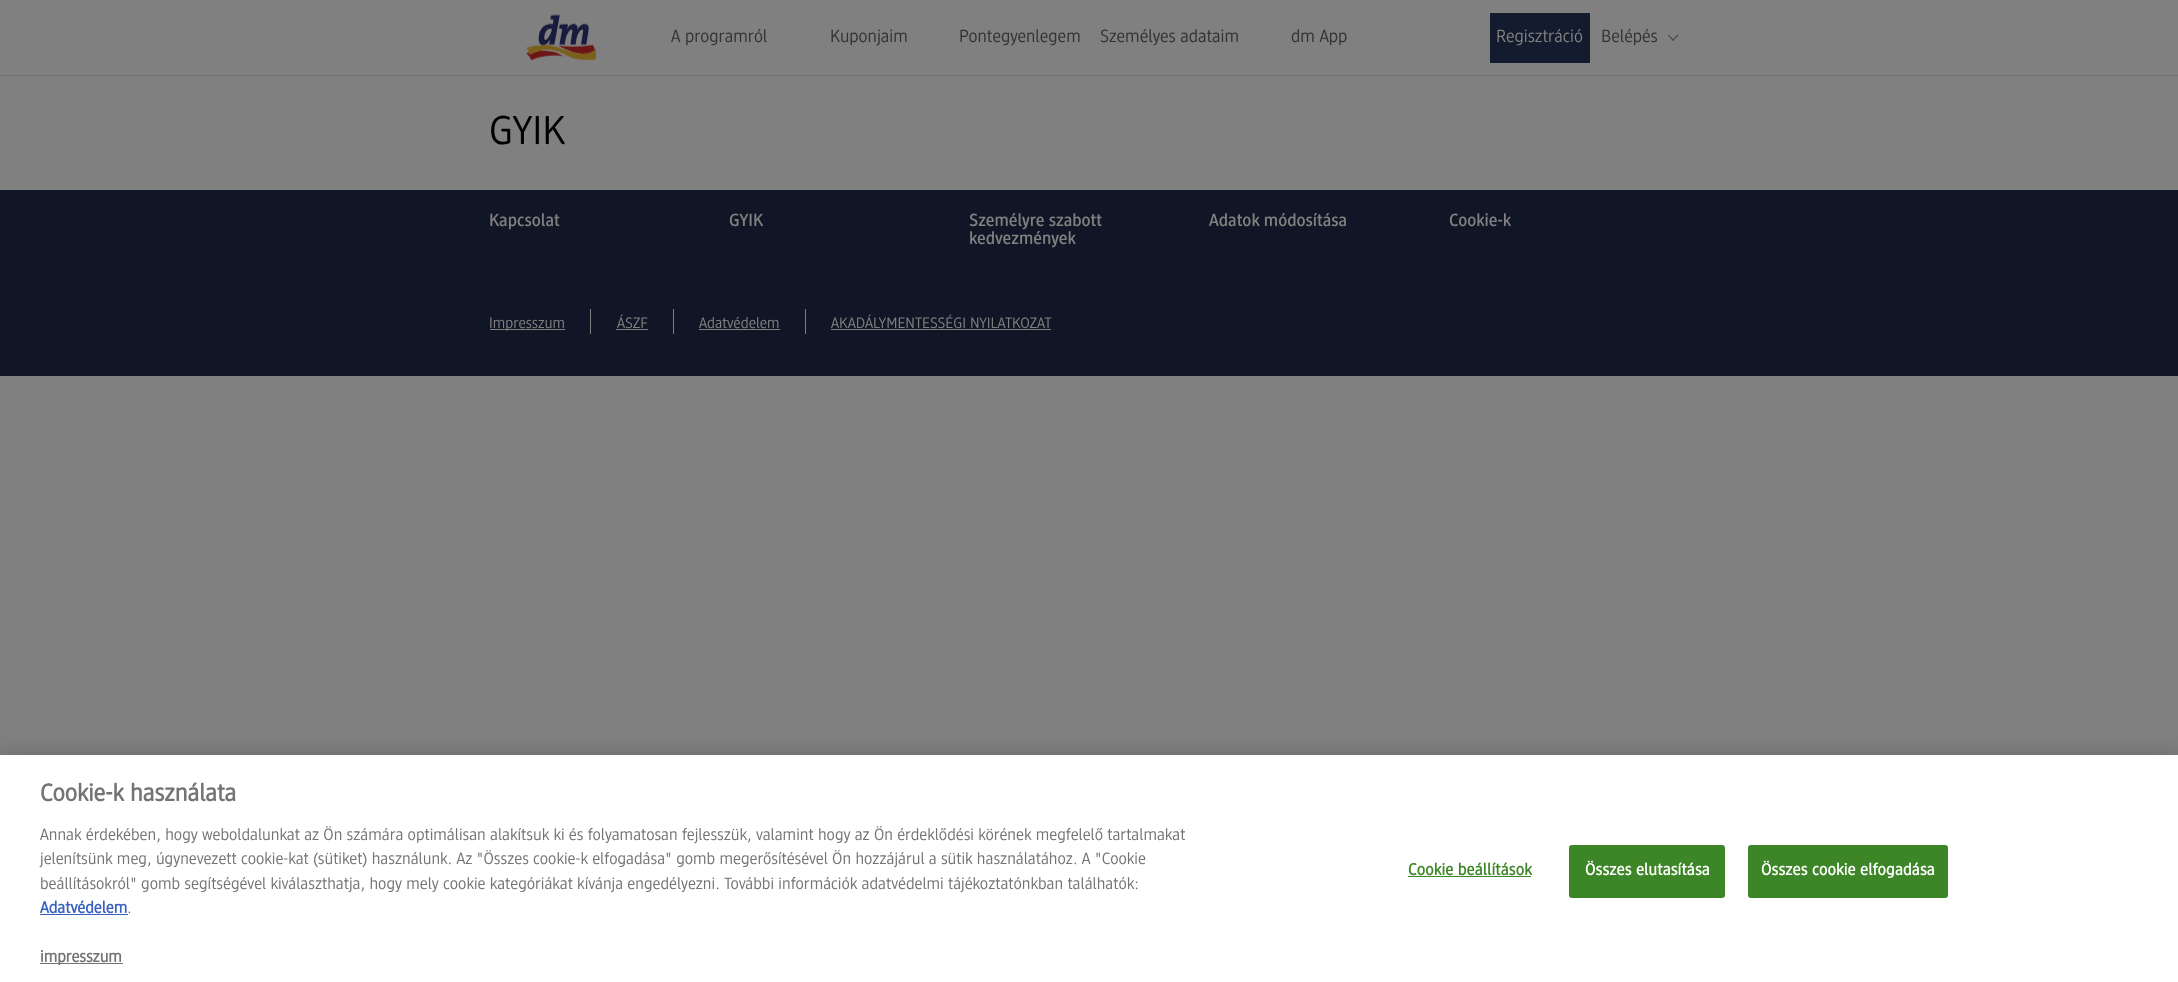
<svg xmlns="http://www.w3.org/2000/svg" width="2178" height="982">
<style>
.a{font:17.5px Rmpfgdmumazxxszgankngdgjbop;fill:#323232}
.b{font:17.5px Rmpfgdmumazxxszgankngdgjbop;fill:#808080}
.c{font:40px Rmpfgdmumazxxszgankngdgjbop;fill:#000}
.d{font:500 17.5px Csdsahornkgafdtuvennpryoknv;fill:#808080}
.e{font:15px Rmpfgdmumazxxszgankngdgjbop;fill:#808080}
.f{font:bold 24px Rmpfgdmumazxxszgankngdgjbop;fill:#747476}
.g{font:16.25px Rmpfgdmumazxxszgankngdgjbop;fill:#747476}
.h{font:bold 16.25px Rmpfgdmumazxxszgankngdgjbop;fill:#3860be}
.i{font:bold 16.25px Rmpfgdmumazxxszgankngdgjbop;fill:#747476}
.j{font:bold 16.25px Rmpfgdmumazxxszgankngdgjbop;letter-spacing:0.2px;fill:#3d8627}
.k{font:bold 16.25px Rmpfgdmumazxxszgankngdgjbop;letter-spacing:0.2px;fill:#fff}
</style>
<defs>
<clipPath id="clip1"><path d="M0 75h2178v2H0z"/></clipPath>
</defs>
<rect width="100%" height="100%" fill="#808080"/>
<g clip-path="url(#clip1)">
<path fill="#717171" filter="blur(0.5px)" d="M1 1h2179v75H1z"/>
</g>
<image href="1.png" x="526" y="14" width="71" height="47"/>
<path fill="#131b2e" d="M1490 13h100v50H1490z"/>
<path fill="#4a4a4a" d="M1677.5 34.5l1 1l-5.5 5.5l-.5-1z"/>
<path fill="#4a4a4a" d="M1668.5 34.5l5.5 5.5l-1 1l-5-5.5z"/>
<path fill="#101626" d="M0 190h2178v186H0z"/>
<path fill="#808080" d="M590 309h1v25H590z"/>
<path fill="#808080" d="M490 329h75v1H490z"/>
<path fill="#808080" d="M673 309h1v25H673z"/>
<path fill="#808080" d="M616 329h32v1H616z"/>
<path fill="#808080" d="M805 309h1v25H805z"/>
<path fill="#808080" d="M699 329h81v1H699z"/>
<path fill="#808080" d="M831 329h220v1H831z"/>
<path fill="#00000033" filter="blur(11px)" d="M0 755h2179v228H0z"/>
<path fill="#fff" d="M0 755h2178v227H0z"/>
<path fill="#3860be" d="M40 914h88v1H40z"/>
<path fill="#747476" d="M40 963h83v1H40z"/>
<path fill="#3d8627" d="M1408 876h123v1H1408z"/>
<rect fill="#3d8627" stroke="#3d8627" x="1569.5" y="845.5" width="155" height="52" rx="2"/>
<rect fill="#3d8627" stroke="#3d8627" x="1748.5" y="845.5" width="199" height="52" rx="2"/>
<text class="a" x="671" y="42">A programról</text>
<text class="a" x="830" y="42">Kuponjaim</text>
<text class="a" x="959" y="42">Pontegyenlegem</text>
<text class="a" x="1100" y="42">Személyes adataim</text>
<text class="a" x="1291" y="42">dm App</text>
<text class="b" x="1496" y="42">Regisztráció</text>
<text class="a" x="1601" y="42">Belépés</text>
<text class="c" x="489" y="144">GYIK</text>
<text class="d" x="489" y="226">Kapcsolat</text>
<text class="d" x="729" y="226">GYIK</text>
<text class="d" x="969" y="226">Személyre szabott</text>
<text class="d" x="969" y="244">kedvezmények</text>
<text class="d" x="1209" y="226">Adatok módosítása</text>
<text class="d" x="1449" y="226">Cookie-k</text>
<text class="e" x="489" y="328">Impresszum</text>
<text class="e" x="617" y="328">ÁSZF</text>
<text class="e" x="699" y="328">Adatvédelem</text>
<text class="e" x="831" y="328">AKADÁLYMENTESSÉGI NYILATKOZAT</text>
<text class="f" x="40" y="801">Cookie-k használata</text>
<text class="g" x="40" y="840">Annak érdekében, hogy weboldalunkat az Ön számára optimálisan alakítsuk ki és folyamatosan fejlesszük, valamint hogy az Ön érdeklődési körének megfelelő tartalmakat</text>
<text class="g" x="40" y="864">jelenítsünk meg, úgynevezett cookie-kat (sütiket) használunk. Az "Összes cookie-k elfogadása" gomb megerősítésével Ön hozzájárul a sütik használatához. A "Cookie</text>
<text class="g" x="40" y="889">beállításokról" gomb segítségével kiválaszthatja, hogy mely cookie kategóriákat kívánja engedélyezni. További információk adatvédelmi tájékoztatónkban találhatók:</text>
<text class="h" x="40" y="913">Adatvédelem</text>
<text class="g" x="127" y="913">.</text>
<text class="i" x="40" y="962">impresszum</text>
<text class="j" x="1408" y="875">Cookie beállítások</text>
<text class="k" x="1585" y="875">Összes elutasítása</text>
<text class="k" x="1761" y="875">Összes cookie elfogadása</text>
</svg>
